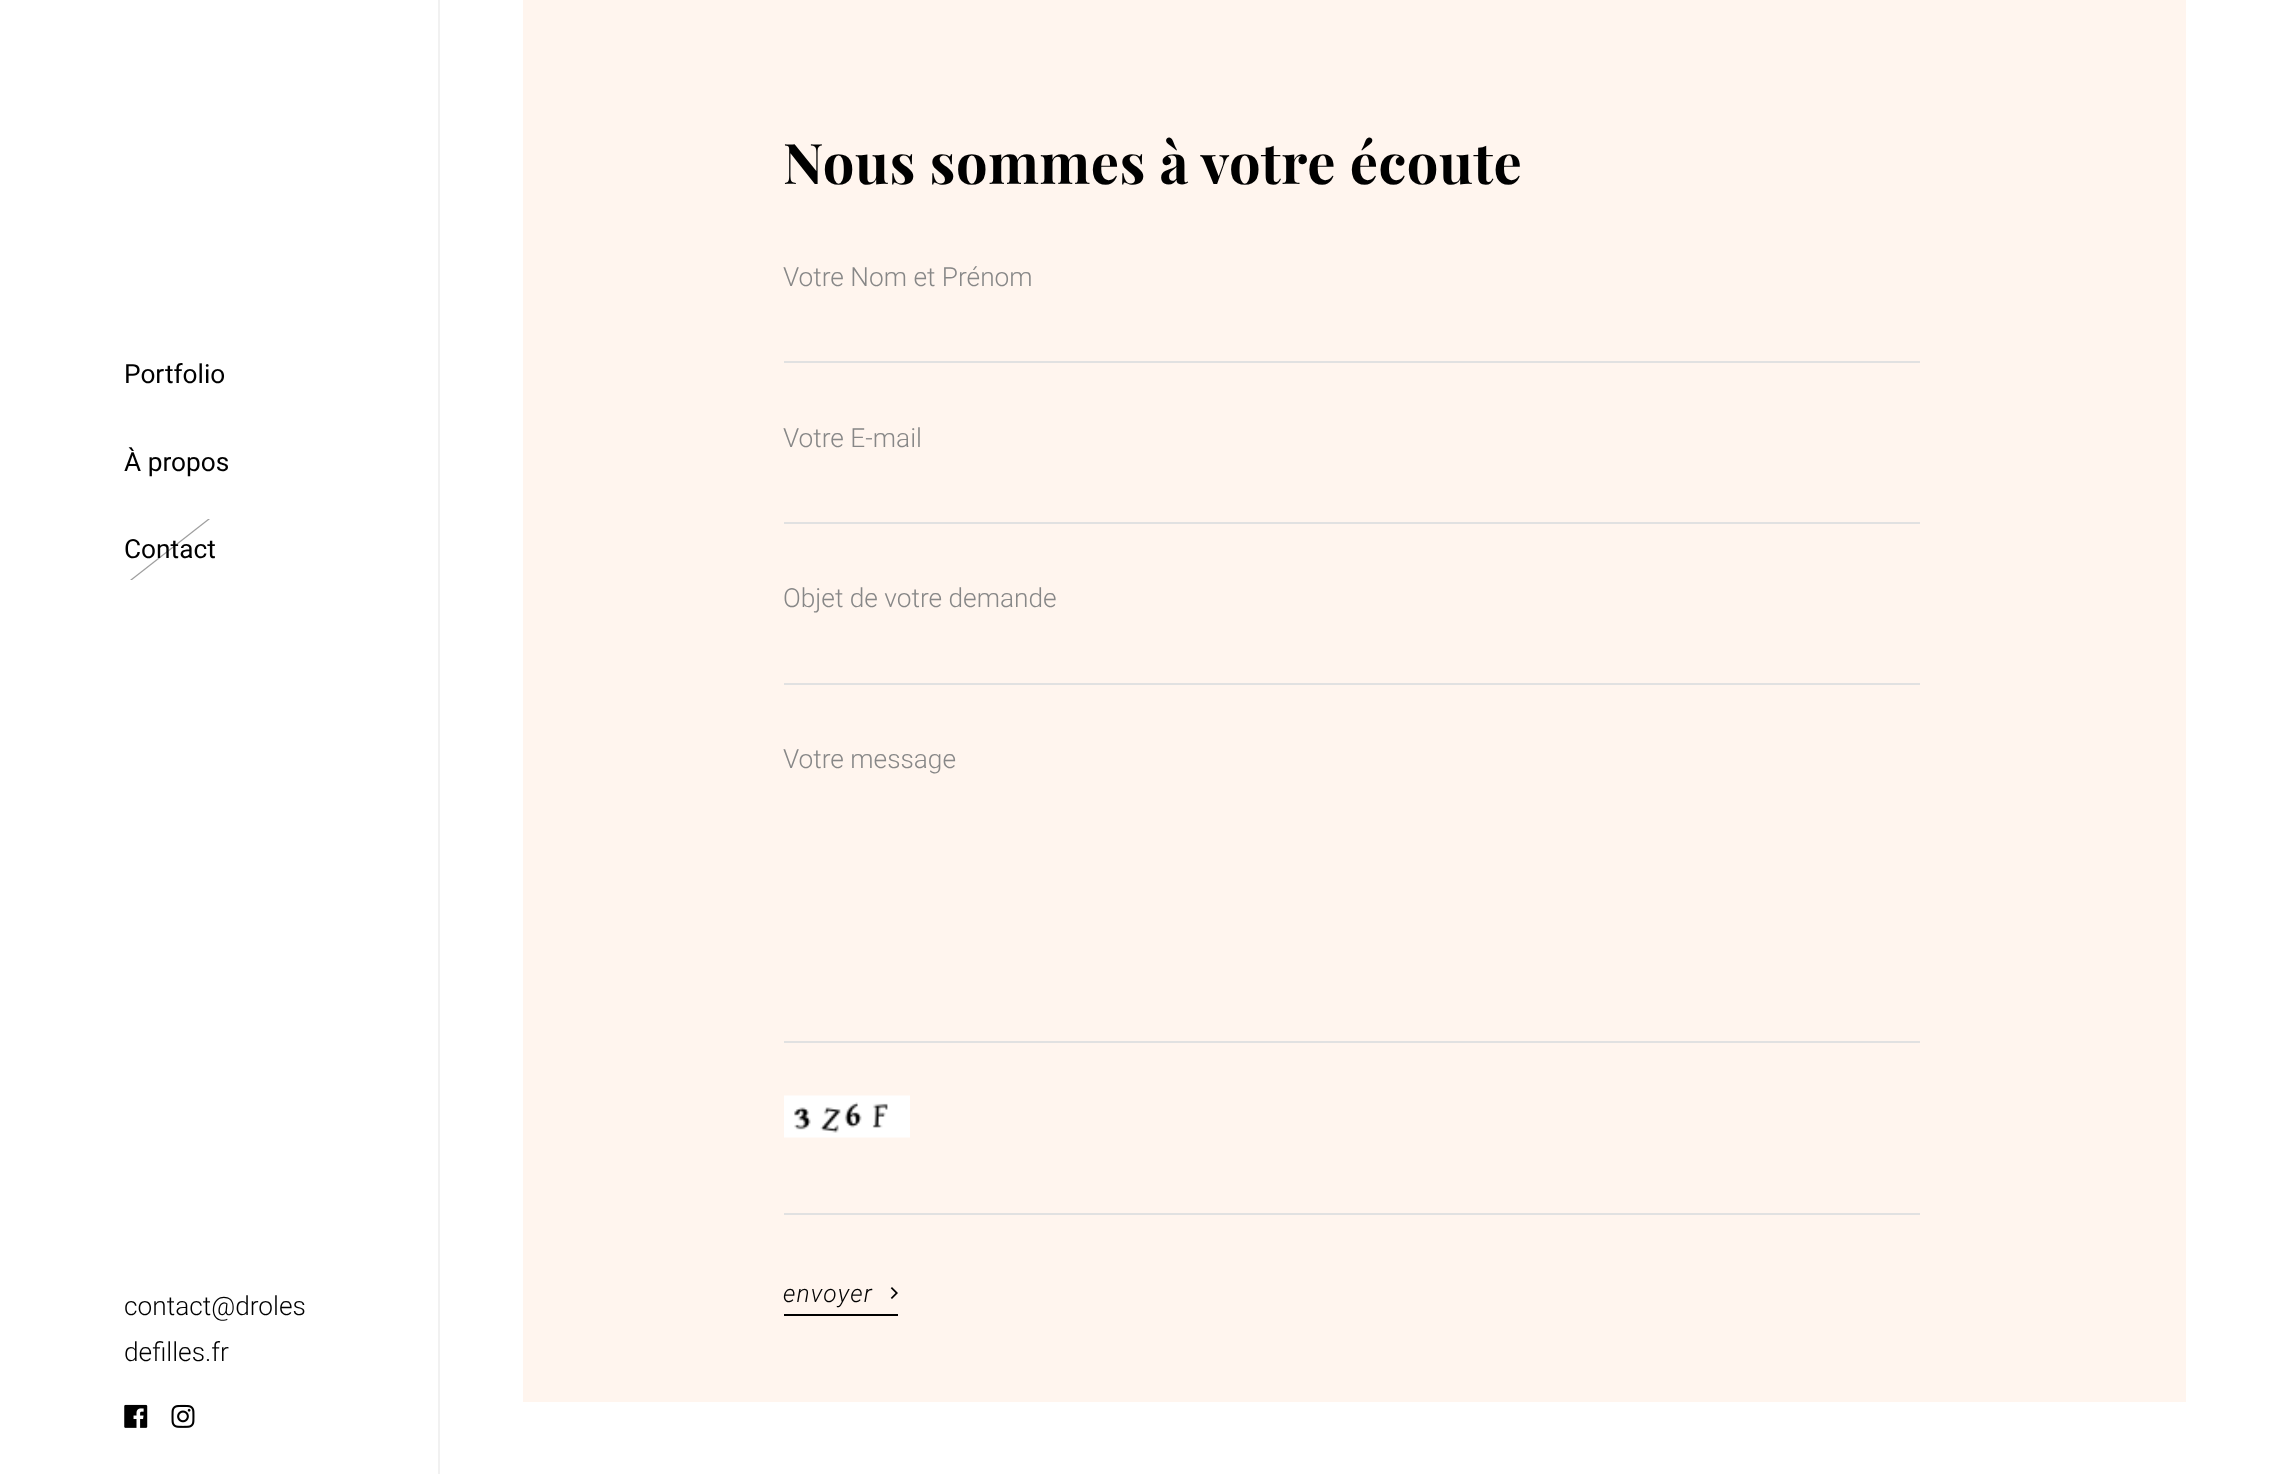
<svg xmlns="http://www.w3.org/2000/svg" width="2269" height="1474">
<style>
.a{font:26.25px Roboto;fill:#000}
.b{font:300 26.25px Roboto;fill:#000}
.c{font:bold 56px Playfair Display;letter-spacing:0.55px;fill:#000}
.d{font:300 26.25px Roboto;fill:#878787}
.e{font:italic 300 24.5px Roboto;letter-spacing:1.25px;fill:#000}
</style>
<rect width="100%" height="100%" fill="#fff"/>
<path fill="#9e9e9e" d="M208 519h2l-78 61h-2z"/>
<path fill="#f1f1f1" d="M438 0h2v1474H438z"/>
<image href="1.png" x="124" y="1404" width="24" height="24"/>
<image href="2.png" x="171" y="1404" width="24" height="24"/>
<path fill="#fff5ee" d="M523 0h1663v1402H523z"/>
<path fill="#e1e1e1" d="M784 361h1136v2H784z"/>
<path fill="#e1e1e1" d="M784 522h1136v2H784z"/>
<path fill="#e1e1e1" d="M784 683h1136v2H784z"/>
<path fill="#e1e1e1" d="M784 1041h1136v2H784z"/>
<image href="3.png" x="784" y="1095" width="126" height="43"/>
<path fill="#e1e1e1" d="M784 1213h1136v2H784z"/>
<image href="4.png" x="890" y="1287" width="8" height="12"/>
<path fill="#000" d="M784 1314h114v2H784z"/>
<text class="a" x="124" y="383">Portfolio</text>
<text class="a" x="124" y="471">À propos</text>
<text class="a" x="124" y="558">Contact</text>
<text class="b" x="124" y="1315">contact@droles</text>
<text class="b" x="124" y="1361">defilles.fr</text>
<text class="c" x="783" y="184">Nous sommes à votre écoute</text>
<text class="d" x="783" y="286">Votre Nom et Prénom</text>
<text class="d" x="783" y="447">Votre E-mail</text>
<text class="d" x="783" y="607">Objet de votre demande</text>
<text class="d" x="783" y="768">Votre message</text>
<text class="e" x="783" y="1302">envoyer</text>
</svg>
